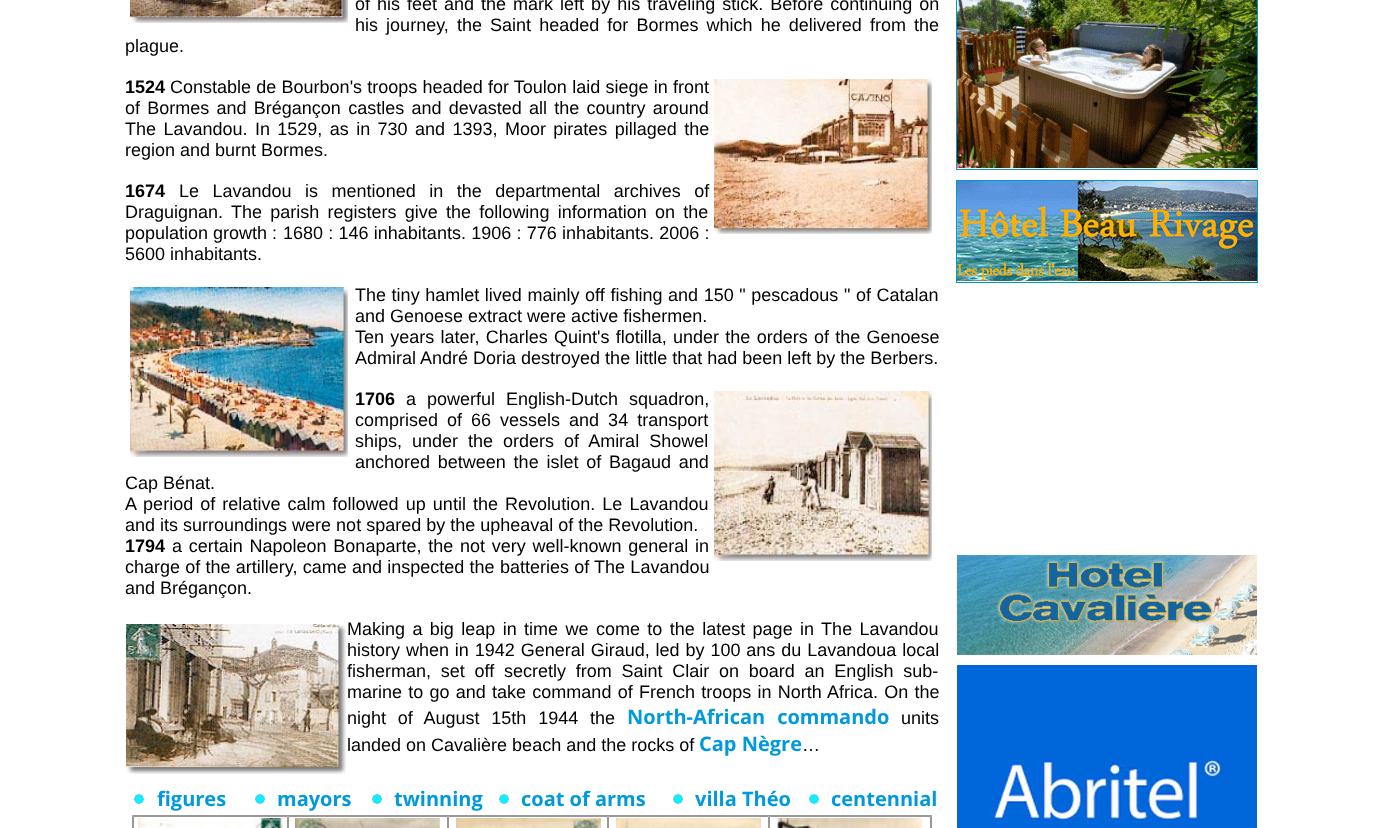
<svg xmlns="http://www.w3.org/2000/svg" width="1378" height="828">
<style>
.a{font:18px Liberation Sans;fill:#000}
.b{font:bold 18px Liberation Sans;fill:#000}
.c{font:bold 20px Open Sans;fill:#09d}
</style>
<rect width="100%" height="100%" fill="#fff"/>
<image href="1.png" x="130" y="0" width="218" height="23"/>
<image href="2.png" x="714" y="79" width="220" height="155"/>
<image href="3.png" x="130" y="287" width="220" height="170"/>
<image href="4.png" x="714" y="391" width="220" height="170"/>
<image href="5.png" x="126" y="624" width="220" height="150"/>
<image href="6.png" x="134" y="794" width="10" height="10"/>
<image href="7.png" x="255" y="794" width="10" height="10"/>
<image href="7.png" x="372" y="794" width="10" height="10"/>
<image href="7.png" x="499" y="794" width="10" height="10"/>
<image href="7.png" x="673" y="794" width="10" height="10"/>
<image href="6.png" x="809" y="794" width="10" height="10"/>
<path fill="none" stroke="#999" d="M132.5 815.5h799v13H132.5z"/>
<path fill="none" stroke="#999" d="M133.5 816.5h154v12H133.5z"/>
<image href="8.png" x="138" y="818" width="145" height="10"/>
<path fill="none" stroke="#999" d="M288.5 816.5h159v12H288.5z"/>
<image href="9.png" x="295" y="818" width="145" height="10"/>
<path fill="none" stroke="#999" d="M448.5 816.5h159v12H448.5z"/>
<image href="10.png" x="456" y="818" width="145" height="10"/>
<path fill="none" stroke="#999" d="M608.5 816.5h160v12H608.5z"/>
<image href="11.png" x="616" y="818" width="145" height="10"/>
<path fill="none" stroke="#999" d="M769.5 816.5h161v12H769.5z"/>
<image href="12.png" x="777" y="818" width="145" height="10"/>
<path fill="#09c" d="M956 0h302v170H956z"/>
<path fill="#fff" d="M957 168h300v1H957z"/>
<image href="13.png" x="957" y="0" width="300" height="168"/>
<path fill="#09c" d="M956 180h302v103H956z"/>
<path fill="#fff" d="M957 281h300v1H957z"/>
<image href="14.png" x="957" y="181" width="300" height="100"/>
<image href="15.png" x="957" y="555" width="300" height="100"/>
<image href="16.png" x="957" y="665" width="300" height="163"/>
<text class="a" x="355" y="10" word-spacing="2">of his feet and the mark left by his traveling stick. Before continuing on</text>
<text class="a" x="355" y="31" word-spacing="3.1">his journey, the Saint headed for Bormes which he delivered from the</text>
<text class="a" x="125" y="52">plague.</text>
<text class="b" x="125" y="93">1524</text>
<text class="a" x="170" y="93" word-spacing="0.25">Constable de Bourbon's troops headed for Toulon laid siege in front</text>
<text class="a" x="125" y="114" word-spacing="2.25">of Bormes and Brégançon castles and devasted all the country around</text>
<text class="a" x="125" y="135" word-spacing="2.4">The Lavandou. In 1529, as in 730 and 1393, Moor pirates pillaged the</text>
<text class="a" x="125" y="156">region and burnt Bormes.</text>
<text class="b" x="125" y="197">1674</text>
<text class="a" x="179" y="197" word-spacing="8.5">Le Lavandou is mentioned in the departmental archives of</text>
<text class="a" x="125" y="218" word-spacing="3.25">Draguignan. The parish registers give the following information on the</text>
<text class="a" x="125" y="239">population growth :</text>
<text class="a" x="283" y="239" word-spacing="0.25">1680 : 146 inhabitants. 1906 : 776 inhabitants. 2006 :</text>
<text class="a" x="125" y="260">5600 inhabitants.</text>
<text class="a" x="355" y="301" word-spacing="0.6">The tiny hamlet lived mainly off fishing and 150 " pescadous " of Catalan</text>
<text class="a" x="355" y="322">and Genoese extract were active fishermen.</text>
<text class="a" x="355" y="343" word-spacing="1.25">Ten years later, Charles Quint's flotilla, under the orders of the Genoese</text>
<text class="a" x="355" y="364">Admiral André Doria destroyed the little that had been left by the Berbers.</text>
<text class="b" x="355" y="405">1706</text>
<text class="a" x="406" y="405" word-spacing="6">a powerful English-Dutch squadron,</text>
<text class="a" x="355" y="426" word-spacing="4">comprised of 66 vessels and 34 transport</text>
<text class="a" x="355" y="447" word-spacing="5">ships, under the orders of Amiral Showel</text>
<text class="a" x="355" y="468" word-spacing="2.75">anchored between the islet of Bagaud and</text>
<text class="a" x="125" y="489">Cap Bénat.</text>
<text class="a" x="125" y="510" word-spacing="2.1">A period of relative calm followed up until the Revolution. Le Lavandou</text>
<text class="a" x="125" y="531">and its surroundings were not spared by the upheaval of the Revolution.</text>
<text class="b" x="125" y="552">1794</text>
<text class="a" x="172" y="552" word-spacing="1.75">a certain Napoleon Bonaparte, the not very well-known general in</text>
<text class="a" x="125" y="573" word-spacing="0.25">charge of the artillery, came and inspected the batteries of The Lavandou</text>
<text class="a" x="125" y="594">and Brégançon.</text>
<text class="a" x="347" y="635" word-spacing="2.4">Making a big leap in time we come to the latest page in The Lavandou</text>
<text class="a" x="347" y="656" word-spacing="0.9">history when in 1942 General Giraud, led by 100 ans du Lavandoua local</text>
<text class="a" x="347" y="677" word-spacing="4.75">fisherman, set off secretly from Saint Clair on board an English sub-</text>
<text class="a" x="347" y="698" word-spacing="1.25">marine to go and take command of French troops in North Africa. On the</text>
<text class="a" x="347" y="724" word-spacing="6.75">night of August 15th 1944 the</text>
<text class="c" x="627" y="724" word-spacing="6.75">North-African commando</text>
<text class="a" x="901" y="724">units</text>
<text class="a" x="347" y="751">landed on Cavalière beach and the rocks of</text>
<text class="c" x="699" y="751">Cap Nègre</text>
<text class="a" x="802" y="751">…</text>
<text class="c" x="157" y="806">figures</text>
<text class="c" x="277" y="806">mayors</text>
<text class="c" x="394" y="806">twinning</text>
<text class="c" x="521" y="806">coat of arms</text>
<text class="c" x="695" y="806">villa Théo</text>
<text class="c" x="831" y="806">centennial</text>
</svg>
